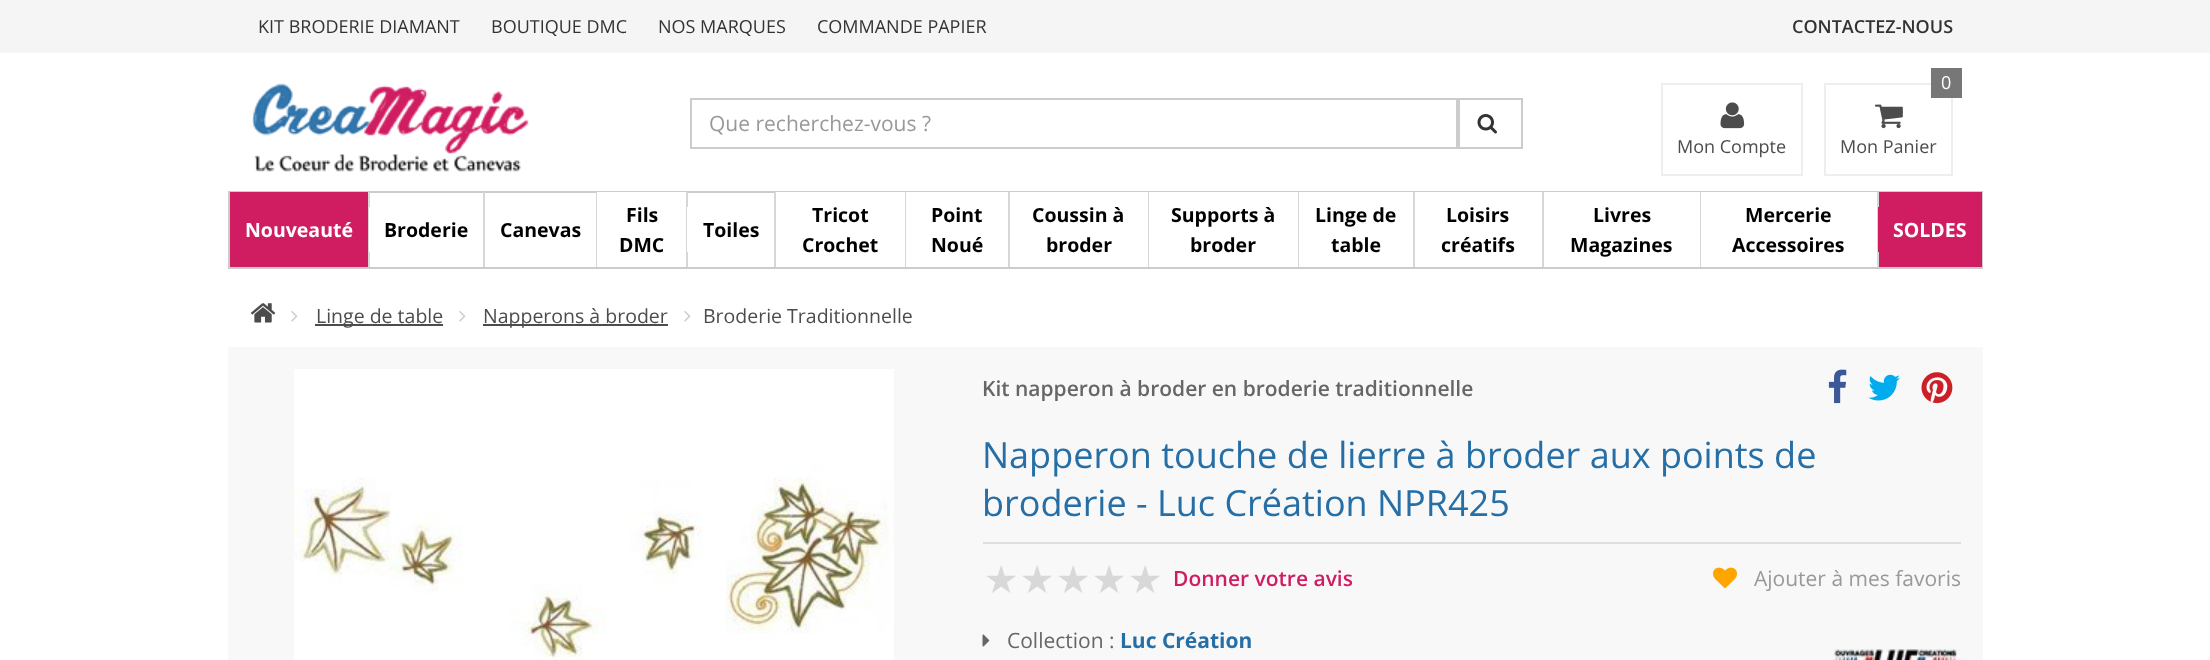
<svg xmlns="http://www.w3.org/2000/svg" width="2210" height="660">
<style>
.a{font:18px Open Sans;fill:#333}
.b{font:600 18px Open Sans;fill:#333}
.c{font:21px Open Sans;fill:#999}
.d{font:18px Open Sans;fill:#4c4c4c}
.e{font:18px Open Sans;fill:#fff}
.f{font:bold 19.5px Open Sans;fill:#fff}
.g{font:bold 19.5px Open Sans;fill:#000}
.h{font:19.5px Open Sans;fill:#4c4c4c}
.i{font:600 21px Open Sans;fill:#666}
.j{font:36px Open Sans;fill:#266ea6}
.k{font:600 21px Open Sans;fill:#d01d61}
.l{font:21px Open Sans;fill:#666}
.m{font:bold 21px Open Sans;fill:#266ea6}
</style>
<rect width="100%" height="100%" fill="#fff"/>
<path fill="#f5f5f5" d="M0 0h2210v53H0z"/>
<image href="1.png" x="252" y="83" width="277" height="89"/>
<path fill="none" stroke="#ccc" stroke-width="2" d="M691 99h766v49H691z"/>
<path fill="none" stroke="#ccc" stroke-width="2" d="M1459 99h63v49H1459z"/>
<image href="2.png" x="1477" y="114" width="20" height="20"/>
<path fill="none" stroke="#eee" stroke-width="2" d="M1662 84h140v91H1662z"/>
<image href="3.png" x="1720" y="102" width="25" height="27"/>
<path fill="none" stroke="#eee" stroke-width="2" d="M1825 84h127v91H1825z"/>
<path fill="#777" d="M1931 68h31v30H1931z"/>
<image href="4.png" x="1875" y="104" width="28" height="25"/>
<path fill="none" stroke="#ccc" stroke-width="2" d="M229 192h1753v76H229z"/>
<path fill="#d01d61" d="M230 192h138v75H230z"/>
<path fill="#d7d7d7" d="M368 192h2v75H368z"/>
<path fill="#fff" d="M369 207h1v45H369z"/>
<path fill="#d7d7d7" d="M483 192h2v75H483z"/>
<path fill="#d7d7d7" d="M596 192h1v75H596z"/>
<path fill="#fff" d="M597 192h89v1H597z"/>
<path fill="#d7d7d7" d="M686 192h2v75H686z"/>
<path fill="#fff" d="M687 207h1v45H687z"/>
<path fill="#d7d7d7" d="M774 192h2v75H774z"/>
<path fill="#fff" d="M776 192h129v1H776z"/>
<path fill="#d7d7d7" d="M905 192h1v75H905z"/>
<path fill="#fff" d="M906 192h102v1H906z"/>
<path fill="#d7d7d7" d="M1008 192h2v75H1008z"/>
<path fill="#fff" d="M1010 192h138v1H1010z"/>
<path fill="#d7d7d7" d="M1148 192h1v75H1148z"/>
<path fill="#fff" d="M1149 192h149v1H1149z"/>
<path fill="#d7d7d7" d="M1298 192h1v75H1298z"/>
<path fill="#fff" d="M1299 192h114v1H1299z"/>
<path fill="#d7d7d7" d="M1413 192h2v75H1413z"/>
<path fill="#fff" d="M1415 192h127v1H1415z"/>
<path fill="#d7d7d7" d="M1542 192h2v75H1542z"/>
<path fill="#fff" d="M1544 192h156v1H1544z"/>
<path fill="#d7d7d7" d="M1700 192h1v75H1700z"/>
<path fill="#fff" d="M1701 192h176v1H1701z"/>
<path fill="#d7d7d7" d="M1877 192h2v75H1877z"/>
<path fill="#d01d61" d="M1879 192h103v75H1879z"/>
<path fill="#d01d61" d="M1878 207h1v45H1878z"/>
<image href="5.png" x="251" y="303" width="25" height="20"/>
<image href="6.png" x="291" y="311" width="7" height="11"/>
<path fill="#4c4c4c" d="M315 324h128v2H315z"/>
<image href="6.png" x="459" y="311" width="7" height="11"/>
<path fill="#4c4c4c" d="M483 324h185v2H483z"/>
<image href="6.png" x="684" y="311" width="7" height="11"/>
<path fill="#f8f8f8" d="M228 347h1755v313H228z"/>
<image href="7.png" x="294" y="369" width="600" height="291"/>
<image href="8.png" x="1828" y="369" width="19" height="35"/>
<image href="9.png" x="1868" y="374" width="32" height="27"/>
<image href="10.png" x="1921" y="372" width="32" height="32"/>
<path fill="#dedede" d="M983 542h978v2H983z"/>
<image href="11.png" x="986" y="565" width="174" height="28"/>
<image href="12.png" x="1713" y="567" width="24" height="22"/>
<image href="13.png" x="982" y="634" width="8" height="13"/>
<image href="14.png" x="1833" y="649" width="128" height="11"/>
<text class="a" x="258" y="33">KIT BRODERIE DIAMANT</text>
<text class="a" x="491" y="33">BOUTIQUE DMC</text>
<text class="a" x="658" y="33">NOS MARQUES</text>
<text class="a" x="817" y="33">COMMANDE PAPIER</text>
<text class="b" x="1792" y="33">CONTACTEZ-NOUS</text>
<text class="c" x="709" y="131">Que recherchez-vous ?</text>
<text class="d" x="1677" y="153">Mon Compte</text>
<text class="e" x="1941" y="89">0</text>
<text class="d" x="1840" y="153">Mon Panier</text>
<text class="f" x="245" y="237">Nouveauté</text>
<text class="g" x="384" y="237">Broderie</text>
<text class="g" x="500" y="237">Canevas</text>
<text class="g" x="626" y="222">Fils</text>
<text class="g" x="619" y="252">DMC</text>
<text class="g" x="703" y="237">Toiles</text>
<text class="g" x="812" y="222">Tricot</text>
<text class="g" x="802" y="252">Crochet</text>
<text class="g" x="931" y="222">Point</text>
<text class="g" x="931" y="252">Noué</text>
<text class="g" x="1032" y="222">Coussin à</text>
<text class="g" x="1046" y="252">broder</text>
<text class="g" x="1171" y="222">Supports à</text>
<text class="g" x="1190" y="252">broder</text>
<text class="g" x="1315" y="222">Linge de</text>
<text class="g" x="1331" y="252">table</text>
<text class="g" x="1446" y="222">Loisirs</text>
<text class="g" x="1441" y="252">créatifs</text>
<text class="g" x="1593" y="222">Livres</text>
<text class="g" x="1570" y="252">Magazines</text>
<text class="g" x="1745" y="222">Mercerie</text>
<text class="g" x="1732" y="252">Accessoires</text>
<text class="f" x="1893" y="237">SOLDES</text>
<text class="h" x="316" y="323">Linge de table</text>
<text class="h" x="483" y="323">Napperons à broder</text>
<text class="h" x="703" y="323">Broderie Traditionnelle</text>
<text class="i" x="982" y="396">Kit napperon à broder en broderie traditionnelle</text>
<text class="j" x="982" y="468">Napperon touche de lierre à broder aux points de</text>
<text class="j" x="982" y="516">broderie - Luc Création NPR425</text>
<text class="k" x="1173" y="586">Donner votre avis</text>
<text class="c" x="1754" y="586">Ajouter à mes favoris</text>
<text class="l" x="1007" y="648">Collection :</text>
<text class="m" x="1120" y="648">Luc Création</text>
</svg>
